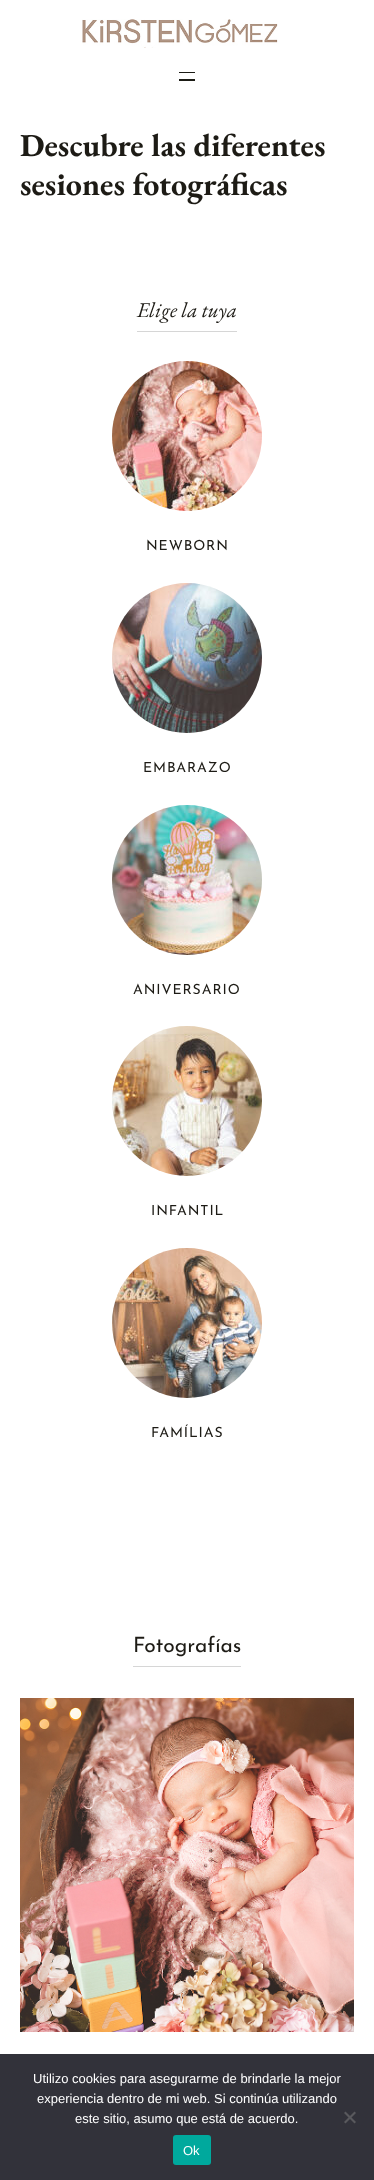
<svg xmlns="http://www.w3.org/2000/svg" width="374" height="2180">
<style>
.a{font:bold 32px EB Garamond;fill:#1d1b15}
.b{font:italic 21px EB Garamond;fill:#1d1b15}
.c{font:14px Josefin Sans;letter-spacing:0.9px;fill:#1d1b15}
.d{font:21px Josefin Sans;fill:#1d1b15}
.e{font:13px Liberation Sans;fill:#fff}
</style>
<rect width="100%" height="100%" fill="#fff"/>
<image href="1.png" x="82" y="19" width="196" height="29"/>
<path fill="#1b1b15" d="M179 72h16v1H179z"/>
<path fill="#1b1b15" d="M179 79h16v2H179z"/>
<path fill="#d6d6d6" d="M137 331h100v1H137z"/>
<image href="2.png" x="112" y="361" width="150" height="150"/>
<image href="3.png" x="112" y="583" width="150" height="150"/>
<image href="4.png" x="112" y="805" width="150" height="150"/>
<image href="5.png" x="112" y="1026" width="150" height="150"/>
<image href="6.png" x="112" y="1248" width="150" height="150"/>
<path fill="#d6d6d6" d="M133 1666h108v1H133z"/>
<image href="7.png" x="20" y="1698" width="334" height="334"/>
<path fill="#32323a" d="M0 2054h374v126H0z"/>
<path fill="#59595d" d="M354.5 2111.5l1.5 1.5l-10.5 10.5l-1.5-1.5z"/>
<path fill="#59595d" d="M344 2113l1.5-1.5l10.5 10.5l-1.5 1.5z"/>
<rect fill="#00a99d" x="173" y="2135" width="38" height="30" rx="3"/>
<text class="a" x="20" y="156">Descubre las diferentes</text>
<text class="a" x="20" y="195">sesiones fotográficas</text>
<text class="b" x="137" y="317">Elige la tuya</text>
<text class="c" x="146" y="550">NEWBORN</text>
<text class="c" x="143" y="772">EMBARAZO</text>
<text class="c" x="133" y="994">ANIVERSARIO</text>
<text class="c" x="151" y="1215">INFANTIL</text>
<text class="c" x="151" y="1437">FAMÍLIAS</text>
<text class="d" x="133" y="1652">Fotografías</text>
<text class="e" x="33" y="2083">Utilizo cookies para asegurarme de brindarle la mejor</text>
<text class="e" x="37" y="2103">experiencia dentro de mi web. Si continúa utilizando</text>
<text class="e" x="75" y="2123">este sitio, asumo que está de acuerdo.</text>
<text class="e" x="183" y="2155">Ok</text>
</svg>
